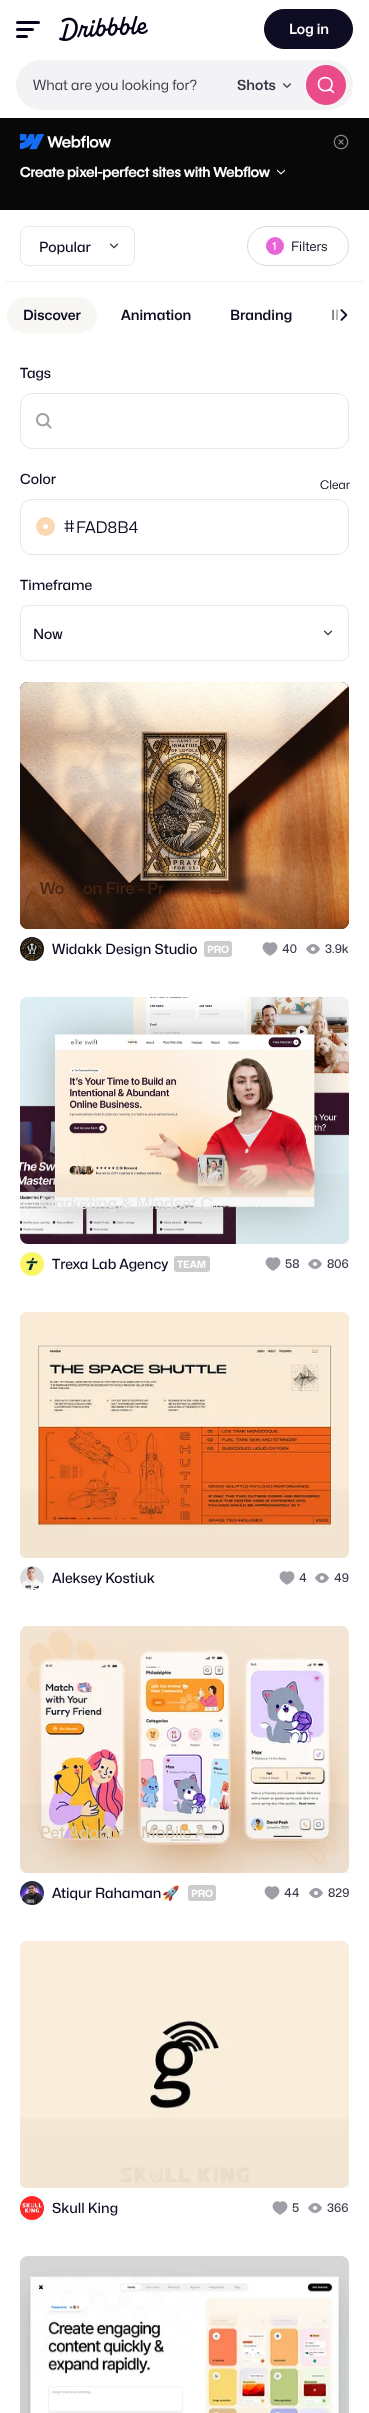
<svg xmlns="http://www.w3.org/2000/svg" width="369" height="2413">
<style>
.a{font:600 14px Mona Sans;fill:#fff}
.b{font:14px Mona Sans;fill:#3a3546}
.c{font:600 14px Mona Sans;fill:#3a3546}
.d{font:600 14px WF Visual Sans;fill:#fff}
.e{font:500 14px Mona Sans;fill:#0d0c22}
.f{font:500 11px Mona Sans;fill:#fff}
.g{font:13px Mona Sans;fill:#0d0c22}
.h{font:600 14px Mona Sans;fill:#0d0c22}
.i{font:12px Mona Sans;fill:#0d0c22}
.j{font:16px Mona Sans;fill:#0d0c22}
.k{font:500 16px Mona Sans;fill:#482513}
.l{font:bold 10px Mona Sans;fill:#fff}
.m{font:500 12px Mona Sans;fill:#3d3d4e}
.n{font:500 16px Mona Sans;fill:#e6e5e5}
.o{font:500 16px Mona Sans;fill:#dbc9ac}
.p{font:14px Noto Color Emoji;fill:#0d0c22}
</style>
<defs>
<linearGradient id="g1" gradientUnits="userSpaceOnUse" x1="184" y1="682" x2="185" y2="929"><stop offset="0" stop-color="#000" stop-opacity="0"/><stop offset="0.15" stop-color="#000" stop-opacity="0"/><stop offset="0.23" stop-color="#000" stop-opacity="0"/><stop offset="0.29" stop-color="#000" stop-opacity="0"/><stop offset="0.35" stop-color="#000" stop-opacity="0.01"/><stop offset="0.41" stop-color="#000" stop-opacity="0.01"/><stop offset="0.47" stop-color="#000" stop-opacity="0.02"/><stop offset="0.53" stop-color="#000" stop-opacity="0.02"/><stop offset="0.59" stop-color="#000" stop-opacity="0.02"/><stop offset="0.65" stop-color="#000" stop-opacity="0.02"/><stop offset="0.71" stop-color="#000" stop-opacity="0.02"/><stop offset="0.78" stop-color="#000" stop-opacity="0.03"/><stop offset="0.84" stop-color="#000" stop-opacity="0.03"/><stop offset="0.92" stop-color="#000" stop-opacity="0.03"/><stop offset="1" stop-color="#000" stop-opacity="0.03"/></linearGradient>
<linearGradient id="g2" gradientUnits="userSpaceOnUse" x1="184" y1="997" x2="185" y2="1244"><stop offset="0" stop-color="#000" stop-opacity="0"/><stop offset="0.15" stop-color="#000" stop-opacity="0"/><stop offset="0.23" stop-color="#000" stop-opacity="0"/><stop offset="0.29" stop-color="#000" stop-opacity="0"/><stop offset="0.35" stop-color="#000" stop-opacity="0.01"/><stop offset="0.41" stop-color="#000" stop-opacity="0.01"/><stop offset="0.47" stop-color="#000" stop-opacity="0.02"/><stop offset="0.53" stop-color="#000" stop-opacity="0.02"/><stop offset="0.59" stop-color="#000" stop-opacity="0.02"/><stop offset="0.65" stop-color="#000" stop-opacity="0.02"/><stop offset="0.71" stop-color="#000" stop-opacity="0.02"/><stop offset="0.78" stop-color="#000" stop-opacity="0.03"/><stop offset="0.84" stop-color="#000" stop-opacity="0.03"/><stop offset="0.92" stop-color="#000" stop-opacity="0.03"/><stop offset="1" stop-color="#000" stop-opacity="0.03"/></linearGradient>
<linearGradient id="g3" gradientUnits="userSpaceOnUse" x1="184" y1="1312" x2="185" y2="1558"><stop offset="0" stop-color="#000" stop-opacity="0"/><stop offset="0.15" stop-color="#000" stop-opacity="0"/><stop offset="0.23" stop-color="#000" stop-opacity="0"/><stop offset="0.29" stop-color="#000" stop-opacity="0"/><stop offset="0.35" stop-color="#000" stop-opacity="0.01"/><stop offset="0.41" stop-color="#000" stop-opacity="0.01"/><stop offset="0.47" stop-color="#000" stop-opacity="0.02"/><stop offset="0.53" stop-color="#000" stop-opacity="0.02"/><stop offset="0.59" stop-color="#000" stop-opacity="0.02"/><stop offset="0.65" stop-color="#000" stop-opacity="0.02"/><stop offset="0.71" stop-color="#000" stop-opacity="0.02"/><stop offset="0.78" stop-color="#000" stop-opacity="0.03"/><stop offset="0.84" stop-color="#000" stop-opacity="0.03"/><stop offset="0.92" stop-color="#000" stop-opacity="0.03"/><stop offset="1" stop-color="#000" stop-opacity="0.03"/></linearGradient>
<linearGradient id="g4" gradientUnits="userSpaceOnUse" x1="184" y1="1626" x2="185" y2="1873"><stop offset="0" stop-color="#000" stop-opacity="0"/><stop offset="0.15" stop-color="#000" stop-opacity="0"/><stop offset="0.23" stop-color="#000" stop-opacity="0"/><stop offset="0.29" stop-color="#000" stop-opacity="0"/><stop offset="0.35" stop-color="#000" stop-opacity="0.01"/><stop offset="0.41" stop-color="#000" stop-opacity="0.01"/><stop offset="0.47" stop-color="#000" stop-opacity="0.02"/><stop offset="0.53" stop-color="#000" stop-opacity="0.02"/><stop offset="0.59" stop-color="#000" stop-opacity="0.02"/><stop offset="0.65" stop-color="#000" stop-opacity="0.02"/><stop offset="0.71" stop-color="#000" stop-opacity="0.02"/><stop offset="0.78" stop-color="#000" stop-opacity="0.03"/><stop offset="0.84" stop-color="#000" stop-opacity="0.03"/><stop offset="0.92" stop-color="#000" stop-opacity="0.03"/><stop offset="1" stop-color="#000" stop-opacity="0.03"/></linearGradient>
<linearGradient id="g5" gradientUnits="userSpaceOnUse" x1="184" y1="1941" x2="185" y2="2188"><stop offset="0" stop-color="#000" stop-opacity="0"/><stop offset="0.15" stop-color="#000" stop-opacity="0"/><stop offset="0.23" stop-color="#000" stop-opacity="0"/><stop offset="0.29" stop-color="#000" stop-opacity="0"/><stop offset="0.35" stop-color="#000" stop-opacity="0.01"/><stop offset="0.41" stop-color="#000" stop-opacity="0.01"/><stop offset="0.47" stop-color="#000" stop-opacity="0.02"/><stop offset="0.53" stop-color="#000" stop-opacity="0.02"/><stop offset="0.59" stop-color="#000" stop-opacity="0.02"/><stop offset="0.65" stop-color="#000" stop-opacity="0.02"/><stop offset="0.71" stop-color="#000" stop-opacity="0.02"/><stop offset="0.78" stop-color="#000" stop-opacity="0.03"/><stop offset="0.84" stop-color="#000" stop-opacity="0.03"/><stop offset="0.92" stop-color="#000" stop-opacity="0.03"/><stop offset="1" stop-color="#000" stop-opacity="0.03"/></linearGradient>
<linearGradient id="g6" gradientUnits="userSpaceOnUse" x1="324" y1="317" x2="364" y2="317"><stop offset="0" stop-color="#fff" stop-opacity="0"/><stop offset="0.5" stop-color="#fff"/></linearGradient>
</defs>
<rect width="100%" height="100%" fill="#fff"/>
<rect fill="#060318" x="16" y="21" width="24" height="3" rx="1.5"/>
<rect fill="#060318" x="16" y="28" width="18" height="3" rx="1.5"/>
<rect fill="#060318" x="16" y="35" width="12" height="3" rx="1.5"/>
<image href="1.png" x="59" y="16" width="89" height="25"/>
<rect fill="#0d0c22" stroke="#0d0c22" x="264.5" y="9.5" width="88" height="39" rx="19.5"/>
<rect fill="#f3f3f6" x="16" y="60" width="337" height="50" rx="25"/>
<image href="2.png" x="283" y="83" width="8" height="5"/>
<circle fill="#ea4c89" stroke="#ea4c89" cx="326" cy="85" r="19.5"/>
<path fill="none" stroke="#fff" stroke-width="1.7" stroke-linecap="round" stroke-linejoin="round" d="M333.5 92.5l-3.5-3.5m2-5c0 9-13.5 9-13.5 0c0-8.5 13.5-8.5 13.5 0z"/>
<path fill="#080808" d="M0 118h369v92H0z"/>
<image href="3.png" x="20" y="134" width="91" height="16"/>
<image href="4.png" x="333" y="134" width="16" height="16"/>
<image href="5.png" x="277" y="169" width="8" height="6"/>
<rect fill="none" stroke="#e9e9eb" x="20.5" y="226.5" width="114" height="39" rx="7.5"/>
<image href="6.png" x="109" y="243" width="10" height="6"/>
<rect fill="none" stroke="#dbdbde" x="247.5" y="226.5" width="101" height="39" rx="19.5"/>
<circle fill="#ea64d9" cx="275" cy="246" r="9"/>
<path fill="#f3f3f4" d="M5 281h359v1H5z"/>
<rect fill="#f8f7f4" x="7" y="297" width="90" height="36" rx="18"/>
<image href="7.png" x="340" y="309" width="8" height="12"/>
<rect fill="none" stroke="#e7e7e9" x="20.5" y="393.5" width="328" height="55" rx="11.5"/>
<image href="8.png" x="36" y="413" width="16" height="16"/>
<rect fill="none" stroke="#e7e7e9" x="20.5" y="499.5" width="328" height="55" rx="11.5"/>
<circle fill="none" stroke="#fad8b4" stroke-width="7" cx="45.5" cy="526.5" r="6"/>
<rect fill="none" stroke="#e9e9eb" x="20.5" y="605.5" width="328" height="55" rx="7.5"/>
<image href="6.png" x="323" y="630" width="10" height="6"/>
<rect fill="#0e0502" x="20" y="682" width="329" height="247" rx="8"/>
<image href="9.png" x="20" y="682" width="329" height="247"/>
<path fill="url(#g1)" d="M20 859h329v70H20z"/>
<image href="10.png" x="20" y="937" width="24" height="24"/>
<rect fill="#ccc" x="204" y="941" width="28" height="16" rx="3"/>
<image href="11.png" x="262" y="942" width="16" height="14"/>
<image href="12.png" x="306" y="944" width="14" height="10"/>
<rect fill="#edeae4" x="20" y="997" width="329" height="247" rx="8"/>
<image href="13.png" x="20" y="997" width="329" height="247"/>
<path fill="url(#g2)" d="M20 1174h329v70H20z"/>
<image href="14.png" x="20" y="1252" width="24" height="24"/>
<rect fill="#ccc" x="174" y="1256" width="36" height="16" rx="3"/>
<image href="11.png" x="265" y="1257" width="16" height="14"/>
<image href="12.png" x="308" y="1259" width="14" height="10"/>
<rect fill="#f4d4ab" x="20" y="1312" width="329" height="246" rx="8"/>
<image href="15.png" x="20" y="1312" width="329" height="246"/>
<path fill="url(#g3)" d="M20 1489h329v69H20z"/>
<image href="16.png" x="20" y="1566" width="24" height="24"/>
<image href="11.png" x="279" y="1571" width="16" height="14"/>
<image href="12.png" x="315" y="1573" width="14" height="10"/>
<rect fill="#faf1e7" x="20" y="1626" width="329" height="247" rx="8"/>
<image href="17.png" x="20" y="1626" width="329" height="247"/>
<path fill="url(#g4)" d="M20 1803h329v70H20z"/>
<image href="18.png" x="20" y="1881" width="24" height="24"/>
<rect fill="#ccc" x="188" y="1885" width="28" height="16" rx="3"/>
<image href="11.png" x="264" y="1886" width="16" height="14"/>
<image href="12.png" x="309" y="1888" width="14" height="10"/>
<rect fill="#f4d8b4" x="20" y="1941" width="329" height="247" rx="8"/>
<image href="19.png" x="20" y="1941" width="329" height="247"/>
<path fill="url(#g5)" d="M20 2118h329v70H20z"/>
<image href="20.png" x="20" y="2196" width="24" height="24"/>
<image href="11.png" x="272" y="2201" width="16" height="14"/>
<image href="12.png" x="308" y="2203" width="14" height="10"/>
<image href="21.png" x="20" y="2256" width="329" height="157"/>
<text class="a" x="289" y="34">Log in</text>
<text class="b" x="33" y="90">What are you looking for?</text>
<text class="c" x="237" y="90">Shots</text>
<text class="d" x="20" y="177">Create pixel-perfect sites with Webflow</text>
<text class="e" x="39" y="252">Popular</text>
<text class="f" x="272" y="250">1</text>
<text class="g" x="291" y="251">Filters</text>
<text class="h" x="23" y="320">Discover</text>
<text class="h" x="121" y="320">Animation</text>
<text class="h" x="230" y="320">Branding</text>
<text class="h" x="331" y="320">Il</text>
<path fill="url(#g6)" d="M332 309h7v11H332z"/>
<text class="e" x="20" y="378">Tags</text>
<text class="e" x="20" y="484">Color</text>
<text class="i" x="320" y="489">Clear</text>
<text class="j" x="64" y="532">#</text>
<text class="j" x="76" y="533">FAD8B4</text>
<text class="e" x="20" y="590">Timeframe</text>
<text class="e" x="33" y="639">Now</text>
<text class="k" x="40" y="894">Wo</text>
<text class="k" x="83" y="894">on Fire - Pr</text>
<text class="k" x="211" y="894">…</text>
<text class="e" x="52" y="954">Widakk Design Studio</text>
<text class="l" x="207" y="953">PRO</text>
<text class="m" x="282" y="953">40</text>
<text class="m" x="325" y="953">3.9k</text>
<text class="n" x="40" y="1209">Marketing &amp; Mindset C…</text>
<text class="e" x="52" y="1269">Trexa Lab Agency</text>
<text class="l" x="177" y="1268">TEAM</text>
<text class="m" x="285" y="1268">58</text>
<text class="m" x="327" y="1268">806</text>
<text class="e" x="52" y="1583">Aleksey Kostiuk</text>
<text class="m" x="299" y="1582">4</text>
<text class="m" x="334" y="1582">49</text>
<text class="o" x="40" y="1838">Pet Adoption Mobile A…</text>
<text class="e" x="52" y="1898">Atiqur Rahaman</text>
<text class="p" x="162" y="1898">🚀</text>
<text class="l" x="191" y="1897">PRO</text>
<text class="m" x="284" y="1897">44</text>
<text class="m" x="328" y="1897">829</text>
<text class="e" x="52" y="2213">Skull King</text>
<text class="m" x="292" y="2212">5</text>
<text class="m" x="327" y="2212">366</text>
</svg>
